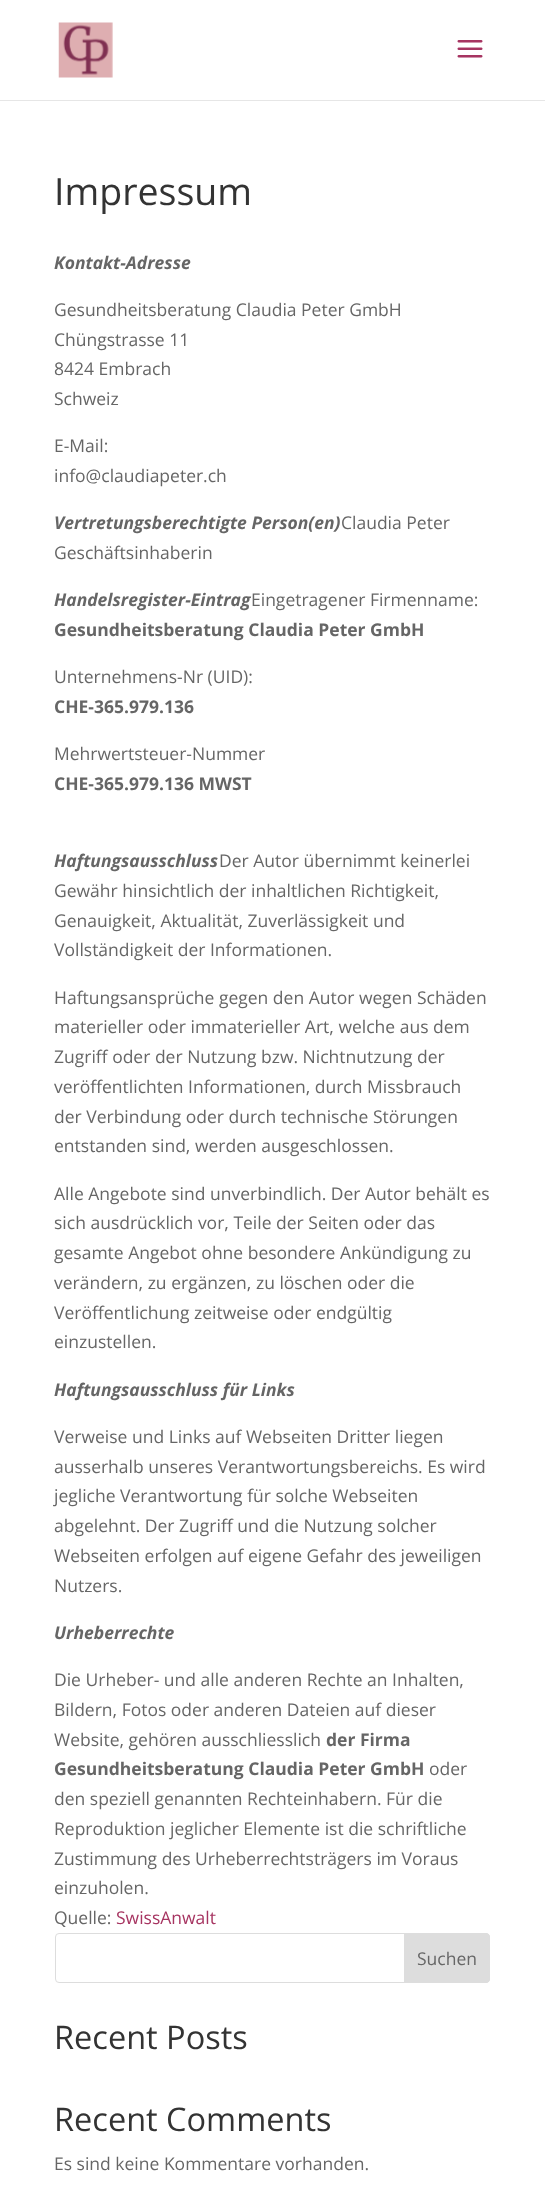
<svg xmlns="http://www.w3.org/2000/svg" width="545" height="2190">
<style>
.a{font:37.5px Open Sans;fill:#333}
.b{font:italic bold 17.5px Open Sans;fill:#666}
.c{font:17.5px Open Sans;fill:#666}
.d{font:bold 17.5px Open Sans;fill:#666}
.e{font:17.5px Open Sans;fill:#a63461}
.f{font:32.5px Open Sans;fill:#333}
</style>
<rect width="100%" height="100%" fill="#fff"/>
<path fill="#e6e6e6" d="M0 100h545v1H0z"/>
<image href="1.png" x="58" y="22" width="55" height="56"/>
<image href="2.png" x="457" y="40" width="26" height="18"/>
<rect fill="none" stroke="#ddd" x="55.5" y="1933.5" width="434" height="49" rx="3.5"/>
<path fill="#ddd" stroke="#ddd" d="M404.5 1933.5h81.5c2 0 3.5 1.5 3.5 3.5v42c0 2-1.5 3.5-3.5 3.5h-81.5z"/>
<text class="a" x="54" y="205">Impressum</text>
<text class="b" x="54" y="269">Kontakt-Adresse</text>
<text class="c" x="54" y="316">Gesundheitsberatung Claudia Peter GmbH</text>
<text class="c" x="54" y="346">Chüngstrasse 11</text>
<text class="c" x="54" y="375">8424 Embrach</text>
<text class="c" x="54" y="405">Schweiz</text>
<text class="c" x="54" y="452">E-Mail:</text>
<text class="c" x="54" y="482">info@claudiapeter.ch</text>
<text class="b" x="54" y="529">Vertretungsberechtigte Person(en)</text>
<text class="c" x="341" y="529">Claudia Peter</text>
<text class="c" x="54" y="559">Geschäftsinhaberin</text>
<text class="b" x="54" y="606">Handelsregister-Eintrag</text>
<text class="c" x="251" y="606">Eingetragener Firmenname:</text>
<text class="d" x="54" y="636">Gesundheitsberatung Claudia Peter GmbH</text>
<text class="c" x="54" y="683">Unternehmens-Nr (UID):</text>
<text class="d" x="54" y="713">CHE-365.979.136</text>
<text class="c" x="54" y="760">Mehrwertsteuer-Nummer</text>
<text class="d" x="54" y="790">CHE-365.979.136 MWST</text>
<text class="b" x="54" y="867">Haftungsausschluss</text>
<text class="c" x="219" y="867">Der Autor übernimmt keinerlei</text>
<text class="c" x="54" y="897">Gewähr hinsichtlich der inhaltlichen Richtigkeit,</text>
<text class="c" x="54" y="927">Genauigkeit, Aktualität, Zuverlässigkeit und</text>
<text class="c" x="54" y="956">Vollständigkeit der Informationen.</text>
<text class="c" x="54" y="1004">Haftungsansprüche gegen den Autor wegen Schäden</text>
<text class="c" x="54" y="1033">materieller oder immaterieller Art, welche aus dem</text>
<text class="c" x="54" y="1063">Zugriff oder der Nutzung bzw. Nichtnutzung der</text>
<text class="c" x="54" y="1093">veröffentlichten Informationen, durch Missbrauch</text>
<text class="c" x="54" y="1123">der Verbindung oder durch technische Störungen</text>
<text class="c" x="54" y="1152">entstanden sind, werden ausgeschlossen.</text>
<text class="c" x="54" y="1200">Alle Angebote sind unverbindlich. Der Autor behält es</text>
<text class="c" x="54" y="1229">sich ausdrücklich vor, Teile der Seiten oder das</text>
<text class="c" x="54" y="1259">gesamte Angebot ohne besondere Ankündigung zu</text>
<text class="c" x="54" y="1289">verändern, zu ergänzen, zu löschen oder die</text>
<text class="c" x="54" y="1319">Veröffentlichung zeitweise oder endgültig</text>
<text class="c" x="54" y="1348">einzustellen.</text>
<text class="b" x="54" y="1396">Haftungsausschluss für Links</text>
<text class="c" x="54" y="1443">Verweise und Links auf Webseiten Dritter liegen</text>
<text class="c" x="54" y="1473">ausserhalb unseres Verantwortungsbereichs. Es wird</text>
<text class="c" x="54" y="1502">jegliche Verantwortung für solche Webseiten</text>
<text class="c" x="54" y="1532">abgelehnt. Der Zugriff und die Nutzung solcher</text>
<text class="c" x="54" y="1562">Webseiten erfolgen auf eigene Gefahr des jeweiligen</text>
<text class="c" x="54" y="1592">Nutzers.</text>
<text class="b" x="54" y="1639">Urheberrechte</text>
<text class="c" x="54" y="1686">Die Urheber- und alle anderen Rechte an Inhalten,</text>
<text class="c" x="54" y="1716">Bildern, Fotos oder anderen Dateien auf dieser</text>
<text class="c" x="54" y="1746">Website, gehören ausschliesslich</text>
<text class="d" x="326" y="1746">der Firma</text>
<text class="d" x="54" y="1775">Gesundheitsberatung Claudia Peter GmbH</text>
<text class="c" x="429" y="1775">oder</text>
<text class="c" x="54" y="1805">den speziell genannten Rechteinhabern. Für die</text>
<text class="c" x="54" y="1835">Reproduktion jeglicher Elemente ist die schriftliche</text>
<text class="c" x="54" y="1865">Zustimmung des Urheberrechtsträgers im Voraus</text>
<text class="c" x="54" y="1894">einzuholen.</text>
<text class="c" x="54" y="1924">Quelle:</text>
<text class="e" x="116" y="1924">SwissAnwalt</text>
<text class="c" x="417" y="1965">Suchen</text>
<text class="f" x="54" y="2049">Recent Posts</text>
<text class="f" x="54" y="2131">Recent Comments</text>
<text class="c" x="54" y="2170">Es sind keine Kommentare vorhanden.</text>
</svg>
